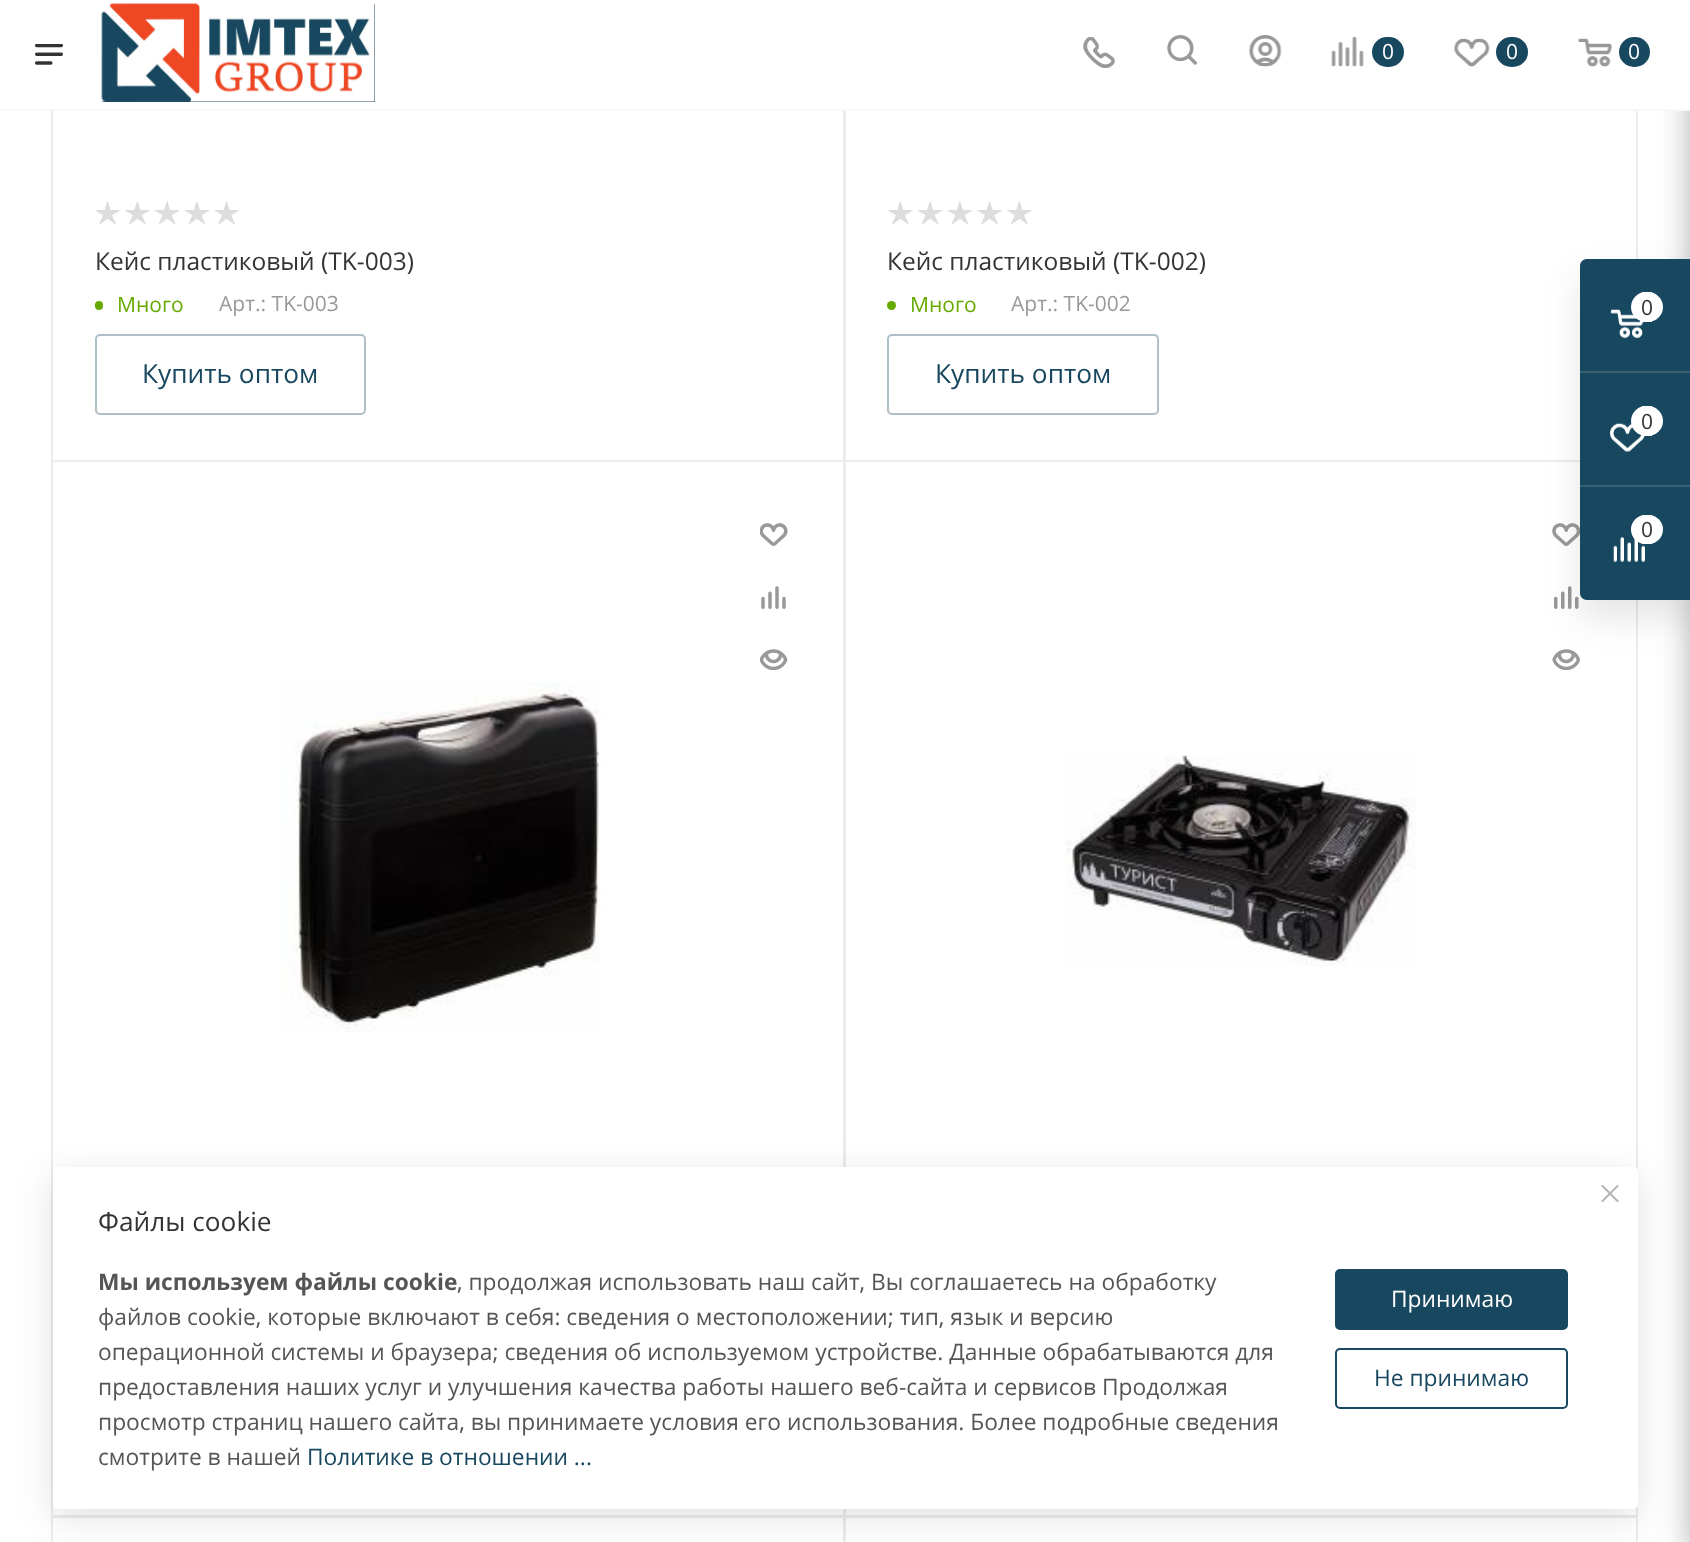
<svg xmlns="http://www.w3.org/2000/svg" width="1690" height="1542">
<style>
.a{font:21px Open Sans;fill:#fff}
.b{font:24.5px Open Sans;fill:#333}
.c{font:21px Open Sans;fill:#6a0}
.d{font:21px Open Sans;fill:#999}
.e{font:26.25px Open Sans;fill:#18485f}
.f{font:21px Open Sans;fill:#333}
.g{font:26.25px Open Sans;fill:#333}
.h{font:bold 22.75px Open Sans;fill:#555}
.i{font:22.75px Open Sans;fill:#555}
.j{font:22.75px Open Sans;fill:#18485f}
.k{font:22.75px Open Sans;fill:#fff}
</style>
<rect width="100%" height="100%" fill="#fff"/>
<path fill="none" stroke="#ececec" stroke-width="2" d="M52 -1h792v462H52z"/>
<path fill="none" stroke="#ececec" stroke-width="2" d="M845 -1h792v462H845z"/>
<rect fill="#2c2c2c66" filter="blur(16px)" x="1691" y="11" width="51" height="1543" rx="4"/>
<path fill="#fff" d="M51 0h1639v109H51z"/>
<path fill="#f8f8f8" d="M0 109h1690v2H0z"/>
<image href="1.png" x="35" y="44" width="28" height="21"/>
<path fill="#18485f" d="M102 4h273v98H102z"/>
<image href="2.png" x="101" y="3" width="274" height="99"/>
<image href="3.png" x="1083" y="37" width="32" height="31"/>
<image href="4.png" x="1167" y="35" width="30" height="30"/>
<image href="5.png" x="1249" y="35" width="33" height="32"/>
<image href="6.png" x="1331" y="37" width="33" height="30"/>
<rect fill="#18485f" x="1372" y="37" width="32" height="30" rx="15"/>
<image href="7.png" x="1454" y="38" width="36" height="29"/>
<rect fill="#18485f" x="1496" y="37" width="32" height="30" rx="15"/>
<image href="8.png" x="1578" y="38" width="34" height="29"/>
<rect fill="#18485f" x="1619" y="37" width="31" height="30" rx="15"/>
<image href="9.png" x="95" y="201" width="25" height="23"/>
<image href="10.png" x="125" y="201" width="25" height="23"/>
<image href="11.png" x="155" y="201" width="25" height="23"/>
<image href="12.png" x="184" y="201" width="25" height="23"/>
<image href="9.png" x="214" y="201" width="25" height="23"/>
<rect fill="#6a0" x="95" y="301" width="8" height="9" rx="4"/>
<rect fill="none" stroke="#aebfc7" stroke-width="2" x="96" y="335" width="269" height="79" rx="4"/>
<image href="10.png" x="888" y="201" width="25" height="23"/>
<image href="11.png" x="918" y="201" width="25" height="23"/>
<image href="12.png" x="947" y="201" width="25" height="23"/>
<image href="9.png" x="977" y="201" width="25" height="23"/>
<image href="10.png" x="1007" y="201" width="25" height="23"/>
<circle fill="#6a0" cx="891.5" cy="305.5" r="4.5"/>
<rect fill="none" stroke="#aebfc7" stroke-width="2" x="888" y="335" width="270" height="79" rx="4"/>
<path fill="none" stroke="#ececec" stroke-width="2" d="M52 461h792v1055H52z"/>
<image href="13.png" x="760" y="523" width="28" height="23"/>
<image href="14.png" x="761" y="586" width="25" height="23"/>
<image href="15.png" x="760" y="649" width="28" height="21"/>
<image href="16.png" x="279" y="682" width="322" height="350"/>
<path fill="none" stroke="#ececec" stroke-width="2" d="M845 461h792v1055H845z"/>
<image href="17.png" x="1552" y="523" width="28" height="23"/>
<image href="18.png" x="1554" y="586" width="25" height="23"/>
<image href="19.png" x="1552" y="649" width="28" height="21"/>
<image href="20.png" x="1066" y="755" width="350" height="211"/>
<path fill="none" stroke="#ececec" stroke-width="2" d="M52 1517h792v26H52z"/>
<path fill="none" stroke="#ececec" stroke-width="2" d="M845 1517h792v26H845z"/>
<rect fill="#0000001a" filter="blur(17.5px)" x="1580" y="277" width="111" height="341" rx="7"/>
<path fill="#18485f" d="M1587 259h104v341h-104c-4 0-7-3-7-7v-327c0-4 3-7 7-7z"/>
<path fill="#386174" d="M1580 371h110v2H1580z"/>
<image href="21.png" x="1610" y="309" width="33" height="29"/>
<rect fill="#fff" x="1631" y="292" width="32" height="30" rx="15"/>
<path fill="#fff" d="M1642 292h10v30H1642z"/>
<path fill="#386174" d="M1580 485h110v2H1580z"/>
<image href="22.png" x="1610" y="423" width="35" height="29"/>
<rect fill="#fff" x="1631" y="406" width="32" height="30" rx="15"/>
<path fill="#fff" d="M1642 406h10v30H1642z"/>
<image href="23.png" x="1613" y="536" width="32" height="26"/>
<rect fill="#fff" x="1631" y="515" width="32" height="29" rx="14.5"/>
<path fill="#fff" d="M1642 515h10v29H1642z"/>
<rect fill="#0000001f" filter="blur(17.5px)" x="53" y="1176" width="1585" height="341" rx="5"/>
<rect fill="#fff" x="53" y="1167" width="1585" height="342" rx="5"/>
<path fill="#fff" d="M1582 1167h51c3 0 5 2 5 5v51h-51c-3 0-5-2-5-5z"/>
<image href="24.png" x="1601" y="1185" width="18" height="17"/>
<rect fill="#18485f" stroke="#18485f" stroke-width="2" x="1336" y="1270" width="231" height="59" rx="4"/>
<rect fill="none" stroke="#18485f" stroke-width="2" x="1336" y="1349" width="231" height="59" rx="4"/>
<text class="a" x="1382" y="59">0</text>
<text class="a" x="1506" y="59">0</text>
<text class="a" x="1628" y="59">0</text>
<text class="b" x="95" y="270">Кейс пластиковый (TK-003)</text>
<text class="c" x="117" y="312">Много</text>
<text class="d" x="219" y="311">Арт.: TK-003</text>
<text class="e" x="142" y="383">Купить оптом</text>
<text class="b" x="887" y="270">Кейс пластиковый (TK-002)</text>
<text class="c" x="910" y="312">Много</text>
<text class="d" x="1011" y="311">Арт.: TK-002</text>
<text class="e" x="935" y="383">Купить оптом</text>
<text class="f" x="1641" y="315">0</text>
<text class="f" x="1641" y="429">0</text>
<text class="f" x="1641" y="537">0</text>
<text class="g" x="98" y="1231">Файлы cookie</text>
<text class="h" x="98" y="1290">Мы используем файлы cookie</text>
<text class="i" x="457" y="1290">, продолжая использовать наш сайт, Вы соглашаетесь на обработку</text>
<text class="i" x="98" y="1325">файлов cookie, которые включают в себя: сведения о местоположении; тип, язык и версию</text>
<text class="i" x="98" y="1360">операционной системы и браузера; сведения об используемом устройстве. Данные обрабатываются для</text>
<text class="i" x="98" y="1395">предоставления наших услуг и улучшения качества работы нашего веб-сайта и сервисов Продолжая</text>
<text class="i" x="98" y="1430">просмотр страниц нашего сайта, вы принимаете условия его использования. Более подробные сведения</text>
<text class="i" x="98" y="1465">смотрите в нашей</text>
<text class="j" x="307" y="1465">Политике в отношении ...</text>
<text class="k" x="1391" y="1307">Принимаю</text>
<text class="j" x="1374" y="1386">Не принимаю</text>
</svg>
